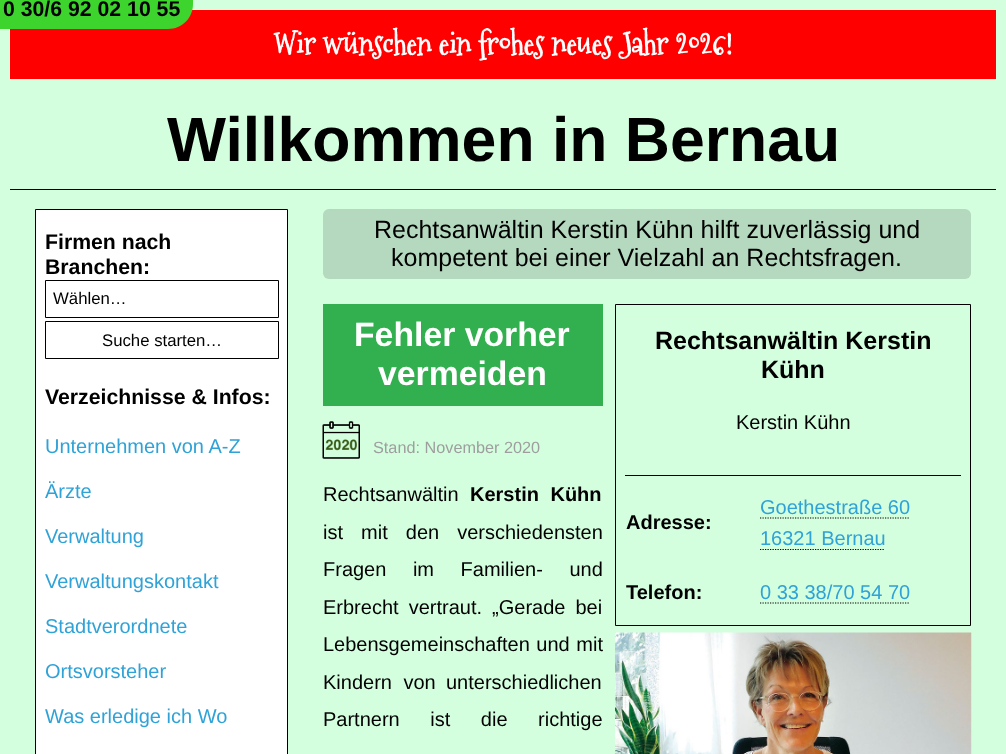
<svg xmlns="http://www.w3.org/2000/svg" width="1006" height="754">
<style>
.a{font:bold 21.25px Liberation Sans;fill:#000}
.b{font:bold 31.25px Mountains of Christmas;fill:#fff}
.c{font:bold 62.5px Liberation Sans;fill:#000}
.d{font:16.75px Liberation Sans;fill:#000}
.e{font:20px Liberation Sans;fill:#2fa2d7}
.f{font:25px Liberation Sans;fill:#000}
.g{font:bold 33.75px Liberation Sans;fill:#fff}
.h{font:bold 25px Liberation Sans;fill:#000}
.i{font:20px Liberation Sans;fill:#000}
.j{font:bold 20px Liberation Sans;fill:#000}
.k{font:16.25px Liberation Sans;fill:#9e9e9e}
</style>
<rect width="100%" height="100%" fill="#d4ffdf"/>
<path fill="#f00" d="M10 10h986v69H10z"/>
<path fill="#3ed42e" d="M-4-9h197v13c0 14-11 25-25 25h-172z"/>
<path fill="#000" d="M10 189h986v1H10z"/>
<path fill="#fff" stroke="#000" d="M35.5 209.5h252v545H35.5z"/>
<path fill="none" stroke="#000" d="M45.5 280.5h233v37H45.5z"/>
<path fill="none" stroke="#000" d="M45.5 321.5h233v37H45.5z"/>
<rect fill="#b4d9be" x="323" y="209" width="648" height="70" rx="6"/>
<path fill="#32af4f" d="M323 304h280v102H323z"/>
<path fill="none" stroke="#000" d="M615.5 304.5h355v321H615.5z"/>
<path fill="#000" d="M625 475h336v1H625z"/>
<path fill="none" stroke="#000" stroke-width="1.2" stroke-dasharray="1.25 1.25" d="M760 518h150"/>
<path fill="none" stroke="#000" stroke-width="1.2" stroke-dasharray="1.25 1.25" d="M760 549.5h125"/>
<path fill="none" stroke="#000" stroke-width="1.2" stroke-dasharray="1.25 1.25" d="M760 603h150"/>
<image href="1.png" x="615" y="632" width="357" height="122"/>
<image href="2.png" x="322" y="421" width="38" height="38"/>
<text class="a" x="3" y="16">0 30/6 92 02 10 55</text>
<text class="b" x="273" y="55">Wir wünschen ein frohes neues Jahr 2026!</text>
<text class="c" x="167" y="161">Willkommen in Bernau</text>
<text class="a" x="45" y="249">Firmen nach</text>
<text class="a" x="45" y="274">Branchen:</text>
<text class="d" x="53" y="304">Wählen…</text>
<text class="d" x="102" y="346">Suche starten…</text>
<text class="a" x="45" y="404">Verzeichnisse &amp; Infos:</text>
<text class="e" x="45" y="453">Unternehmen von A-Z</text>
<text class="e" x="45" y="498">Ärzte</text>
<text class="e" x="45" y="543">Verwaltung</text>
<text class="e" x="45" y="588">Verwaltungskontakt</text>
<text class="e" x="45" y="633">Stadtverordnete</text>
<text class="e" x="45" y="678">Ortsvorsteher</text>
<text class="e" x="45" y="723">Was erledige ich Wo</text>
<text class="f" x="374" y="238">Rechtsanwältin Kerstin Kühn hilft zuverlässig und</text>
<text class="f" x="391" y="266">kompetent bei einer Vielzahl an Rechtsfragen.</text>
<text class="g" x="354" y="346">Fehler vorher</text>
<text class="g" x="378" y="385">vermeiden</text>
<text class="h" x="655" y="349">Rechtsanwältin Kerstin</text>
<text class="h" x="761" y="378">Kühn</text>
<text class="i" x="736" y="429">Kerstin Kühn</text>
<text class="j" x="626" y="529">Adresse:</text>
<text class="e" x="760" y="514">Goethestraße 60</text>
<text class="e" x="760" y="545">16321 Bernau</text>
<text class="j" x="626" y="599">Telefon:</text>
<text class="e" x="760" y="599">0 33 38/70 54 70</text>
<text class="k" x="373" y="453">Stand: November 2020</text>
<text class="i" x="323" y="501">Rechtsanwältin</text>
<text class="j" x="470" y="501" word-spacing="6">Kerstin Kühn</text>
<text class="i" x="323" y="539" word-spacing="12.5">ist mit den verschiedensten</text>
<text class="i" x="323" y="576" word-spacing="21">Fragen im Familien- und</text>
<text class="i" x="323" y="614" word-spacing="4.5">Erbrecht vertraut. „Gerade bei</text>
<text class="i" x="323" y="651" word-spacing="1">Lebensgemeinschaften und mit</text>
<text class="i" x="323" y="689" word-spacing="6">Kindern von</text>
<text class="i" x="446" y="689">unterschiedlichen</text>
<text class="i" x="323" y="726" word-spacing="25">Partnern ist die richtige</text>
</svg>
